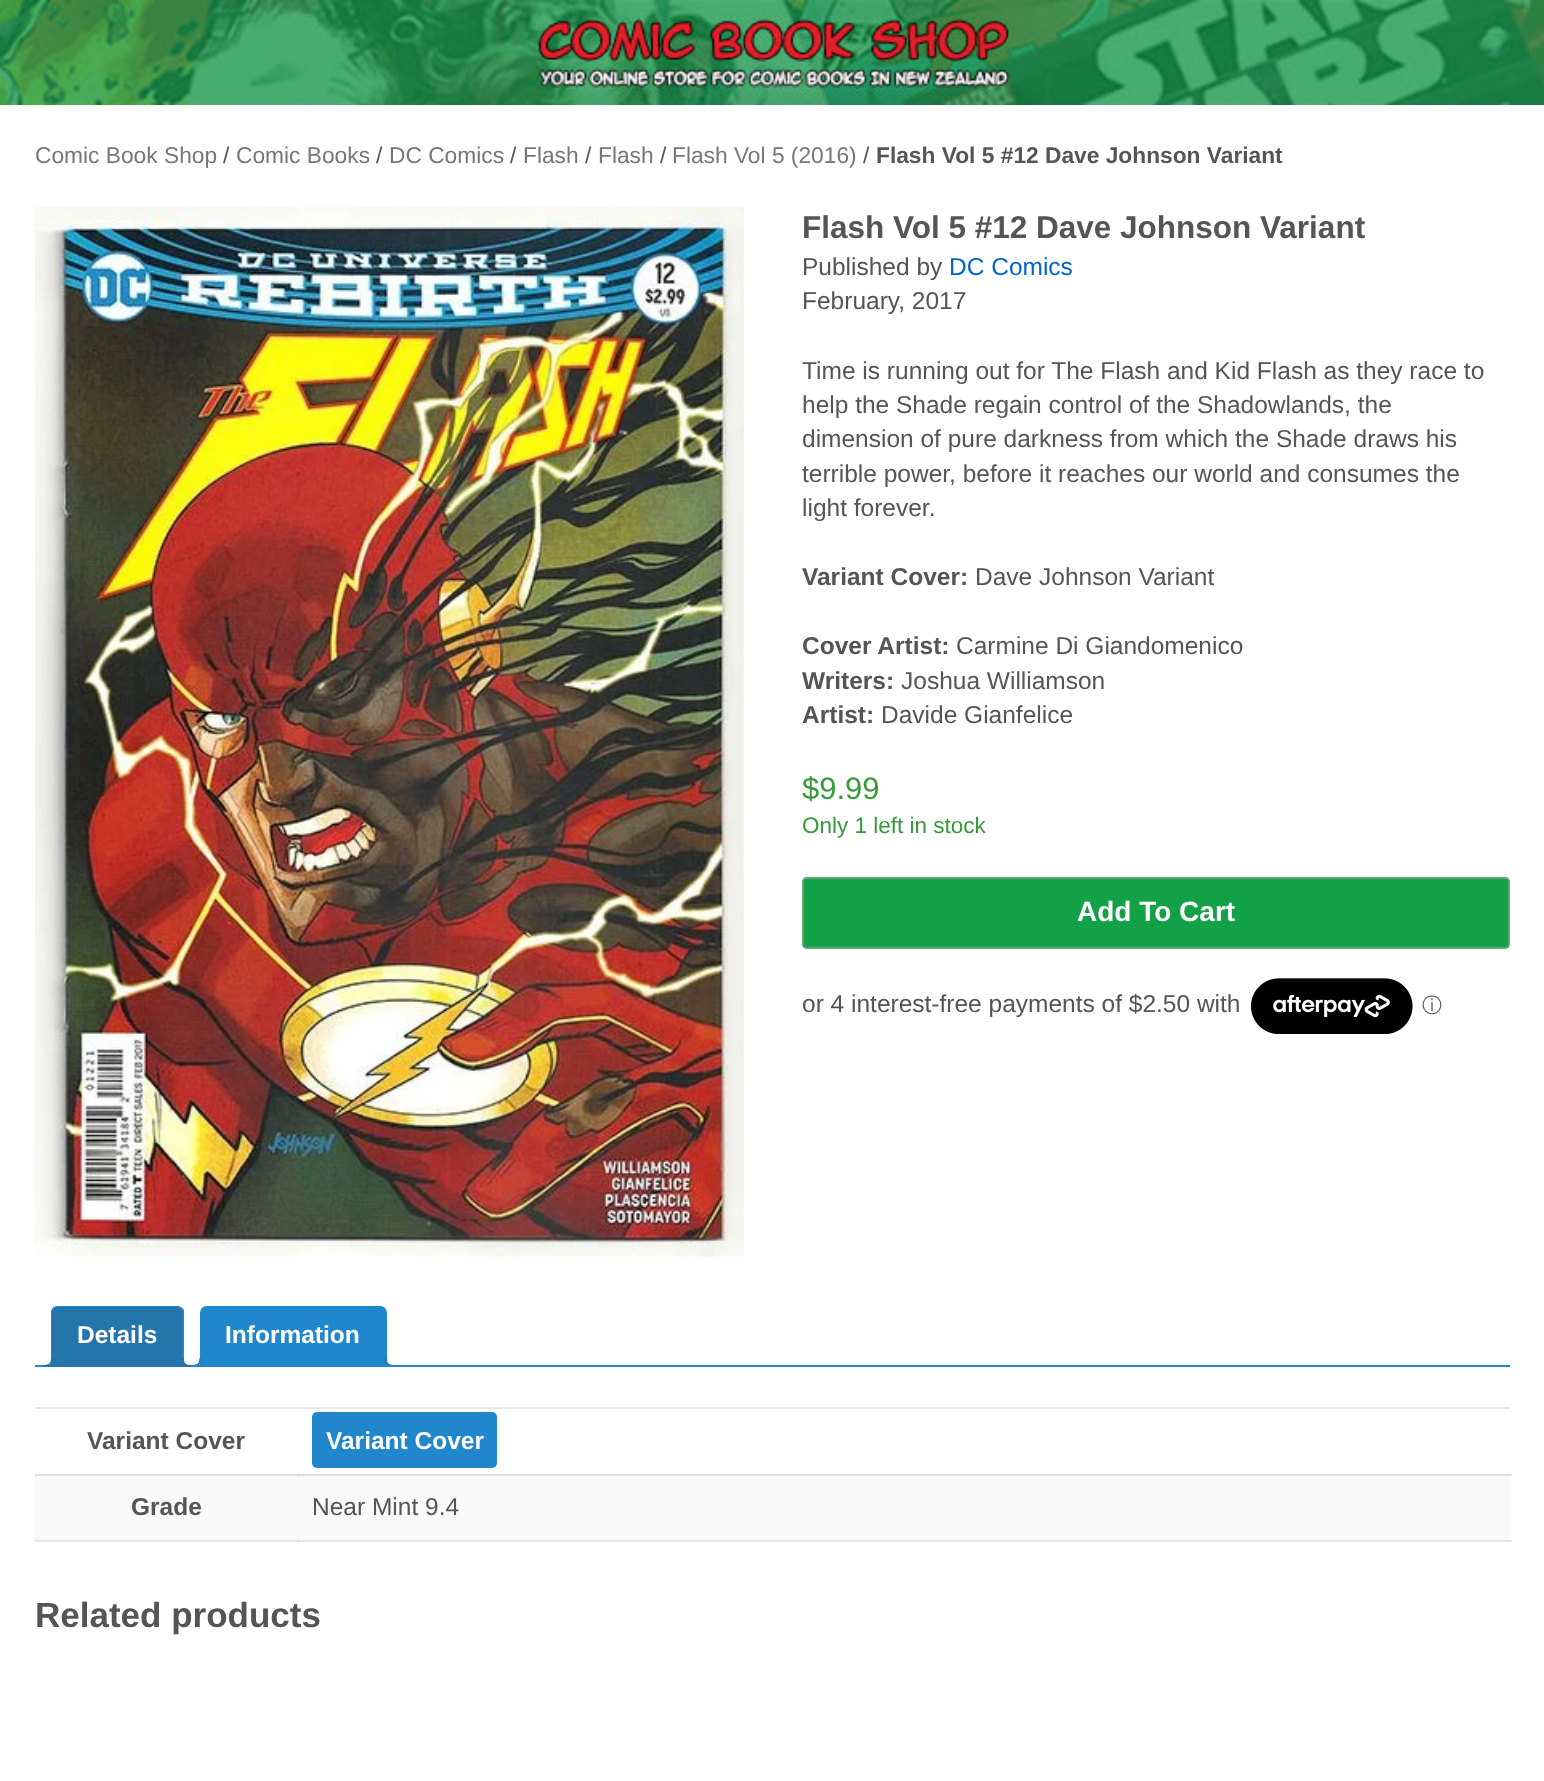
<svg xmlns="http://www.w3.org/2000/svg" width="1544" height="1781">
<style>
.a{font:22.75px Liberation Sans;fill:#777}
.b{font:22.75px Liberation Sans;fill:#555}
.c{font:bold 22.75px Liberation Sans;fill:#555}
.d{font:bold 31.5px Liberation Sans;fill:#555}
.e{font:24.5px Liberation Sans;fill:#555}
.f{font:24.5px Liberation Sans;fill:#06c}
.g{font:bold 24.5px Liberation Sans;fill:#555}
.h{font:31px Liberation Sans;fill:#349b36}
.i{font:22.5px Liberation Sans;fill:#349b36}
.j{font:bold 28px Liberation Sans;fill:#fff}
.k{font:500 20px WenQuanYi Zen Hei;fill:#555}
.l{font:bold 24.5px Liberation Sans;fill:#fff}
.m{font:bold 35px Liberation Sans;fill:#555}
</style>
<defs>
<clipPath id="clip1"><path d="M35 1306h1475v61H35z"/></clipPath>
</defs>
<rect width="100%" height="100%" fill="#fff"/>
<path fill="#e6e6e6" d="M1510 1474h2v2H1510z"/>
<path fill="#e6e6e6" d="M35 1540h1477v2H35z"/>
<image href="1.png" x="0" y="0" width="1544" height="105"/>
<image href="2.png" x="35" y="206" width="709" height="1051"/>
<rect fill="#13a147" x="802" y="877" width="708" height="72" rx="5"/>
<rect fill="none" stroke="#b1aba980" stroke-width="2" x="803" y="878" width="706" height="70" rx="4"/>
<image href="3.png" x="1251" y="978" width="162" height="56"/>
<path fill="#2087cc" stroke="#2087cc" stroke-width="2" d="M207 1307h173c3.5 0 6 2.5 6 6v53h-185v-53c0-3.5 2.5-6 6-6z"/>
<g clip-path="url(#clip1)">
<path fill="#2087cc" d="M196 1366.5v3.5c5.5 0 9-2 9-8h-4c-1 2-2.5 4-5 4.5z"/>
</g>
<path fill="#2475ab" fill-rule="evenodd" d="M192.5 1358h8.5c0 6-2.5 9-8.5 9zm0 0h7c0 5-2 7-7 7z"/>
<g clip-path="url(#clip1)">
<path fill="#2087cc" d="M382 1362c0 5 3 8 8 8v-3.5c-2-.5-4-2.5-4.5-4.5z"/>
</g>
<path fill="#2475ab" fill-rule="evenodd" d="M385 1358h9v9c-4.5 0-9-2-9-7zm2 0h7v7c-3.5 0-7-1-7-5z"/>
<path fill="#2087cc" d="M35 1365h1475v2H35z"/>
<path fill="#2475ab" d="M58 1306h119c4 0 7 3 7 7v54h-133v-54c0-4 3-7 7-7z"/>
<path fill="#2087cc" d="M58 1306c-2 0-4 1-5 2l1 1c1-1 3-2 4-2h119c1 0 3 1 4 2l1-1c-2-1-3-2-5-2z"/>
<path fill="#2087cc" d="M182 1308l2 2v57l-2-2v-53c0-1-1-2-1-3z"/>
<path fill="#2475ab" d="M184 1367h-133l1-2h130z"/>
<path fill="#2087cc" d="M53 1308c-1 1-2 2-2 4v54l1-1v-53l2-3z"/>
<g clip-path="url(#clip1)">
<path fill="#2475ab" d="M47 1366.5v3.5c5.5 0 9-2 9-8h-4c-.5 2.5-2.5 4-5 4.5z"/>
</g>
<path fill="#2475ab" fill-rule="evenodd" d="M44 1358h8.5c0 6-2.5 9-8.5 9zm0 0h7c0 5-2 7-7 7z"/>
<g clip-path="url(#clip1)">
<path fill="#2475ab" d="M179 1362c0 5 3 8 8 8v-3.5c-2-.5-4-2.5-4.5-4.5z"/>
</g>
<path fill="#2475ab" fill-rule="evenodd" d="M182 1358h9v9c-4.5 0-9-2-9-7zm2 0h7v7c-3.5 0-7-1-7-5z"/>
<path fill="#e6e6e6" d="M35 1407h1475v2H35z"/>
<rect fill="#2087cc" x="312" y="1412" width="185" height="56" rx="5"/>
<path fill="#f9f9f9" d="M35 1476h1475v64H35z"/>
<path fill="#e0e0e0" d="M35 1474h1475v2H35z"/>
<path fill="#cacaca" d="M298 1474h1v2H298z"/>
<path fill="#cfcfcf" d="M298 1540h1v2H298z"/>
<text class="a" x="35" y="163">Comic Book Shop</text>
<text class="b" x="223" y="163">/</text>
<text class="a" x="236" y="163">Comic Books</text>
<text class="b" x="376" y="163">/</text>
<text class="a" x="389" y="163">DC Comics</text>
<text class="b" x="510" y="163">/</text>
<text class="a" x="523" y="163">Flash</text>
<text class="b" x="585" y="163">/</text>
<text class="a" x="598" y="163">Flash</text>
<text class="b" x="660" y="163">/</text>
<text class="a" x="672" y="163">Flash Vol 5 (2016)</text>
<text class="b" x="863" y="163">/</text>
<text class="c" x="876" y="163">Flash Vol 5 #12 Dave Johnson Variant</text>
<text class="d" x="802" y="238">Flash Vol 5 #12 Dave Johnson Variant</text>
<text class="e" x="802" y="275">Published by</text>
<text class="f" x="949" y="275">DC Comics</text>
<text class="e" x="802" y="309">February, 2017</text>
<text class="e" x="802" y="379">Time is running out for The Flash and Kid Flash as they race to</text>
<text class="e" x="802" y="413">help the Shade regain control of the Shadowlands, the</text>
<text class="e" x="802" y="447">dimension of pure darkness from which the Shade draws his</text>
<text class="e" x="802" y="482">terrible power, before it reaches our world and consumes the</text>
<text class="e" x="802" y="516">light forever.</text>
<text class="g" x="802" y="585">Variant Cover:</text>
<text class="e" x="975" y="585">Dave Johnson Variant</text>
<text class="g" x="802" y="654">Cover Artist:</text>
<text class="e" x="956" y="654">Carmine Di Giandomenico</text>
<text class="g" x="802" y="689">Writers:</text>
<text class="e" x="901" y="689">Joshua Williamson</text>
<text class="g" x="802" y="723">Artist:</text>
<text class="e" x="881" y="723">Davide Gianfelice</text>
<text class="h" x="802" y="799">$9.99</text>
<text class="i" x="802" y="833">Only 1 left in stock</text>
<text class="j" x="1077" y="921">Add To Cart</text>
<text class="e" x="802" y="1012">or 4 interest-free payments of $2.50 with</text>
<text class="k" x="1422" y="1012">ⓘ</text>
<text class="l" x="77" y="1343">Details</text>
<text class="l" x="225" y="1343">Information</text>
<text class="g" x="87" y="1449">Variant Cover</text>
<text class="l" x="326" y="1449">Variant Cover</text>
<text class="g" x="131" y="1515">Grade</text>
<text class="e" x="312" y="1515">Near Mint 9.4</text>
<text class="m" x="35" y="1627">Related products</text>
</svg>
